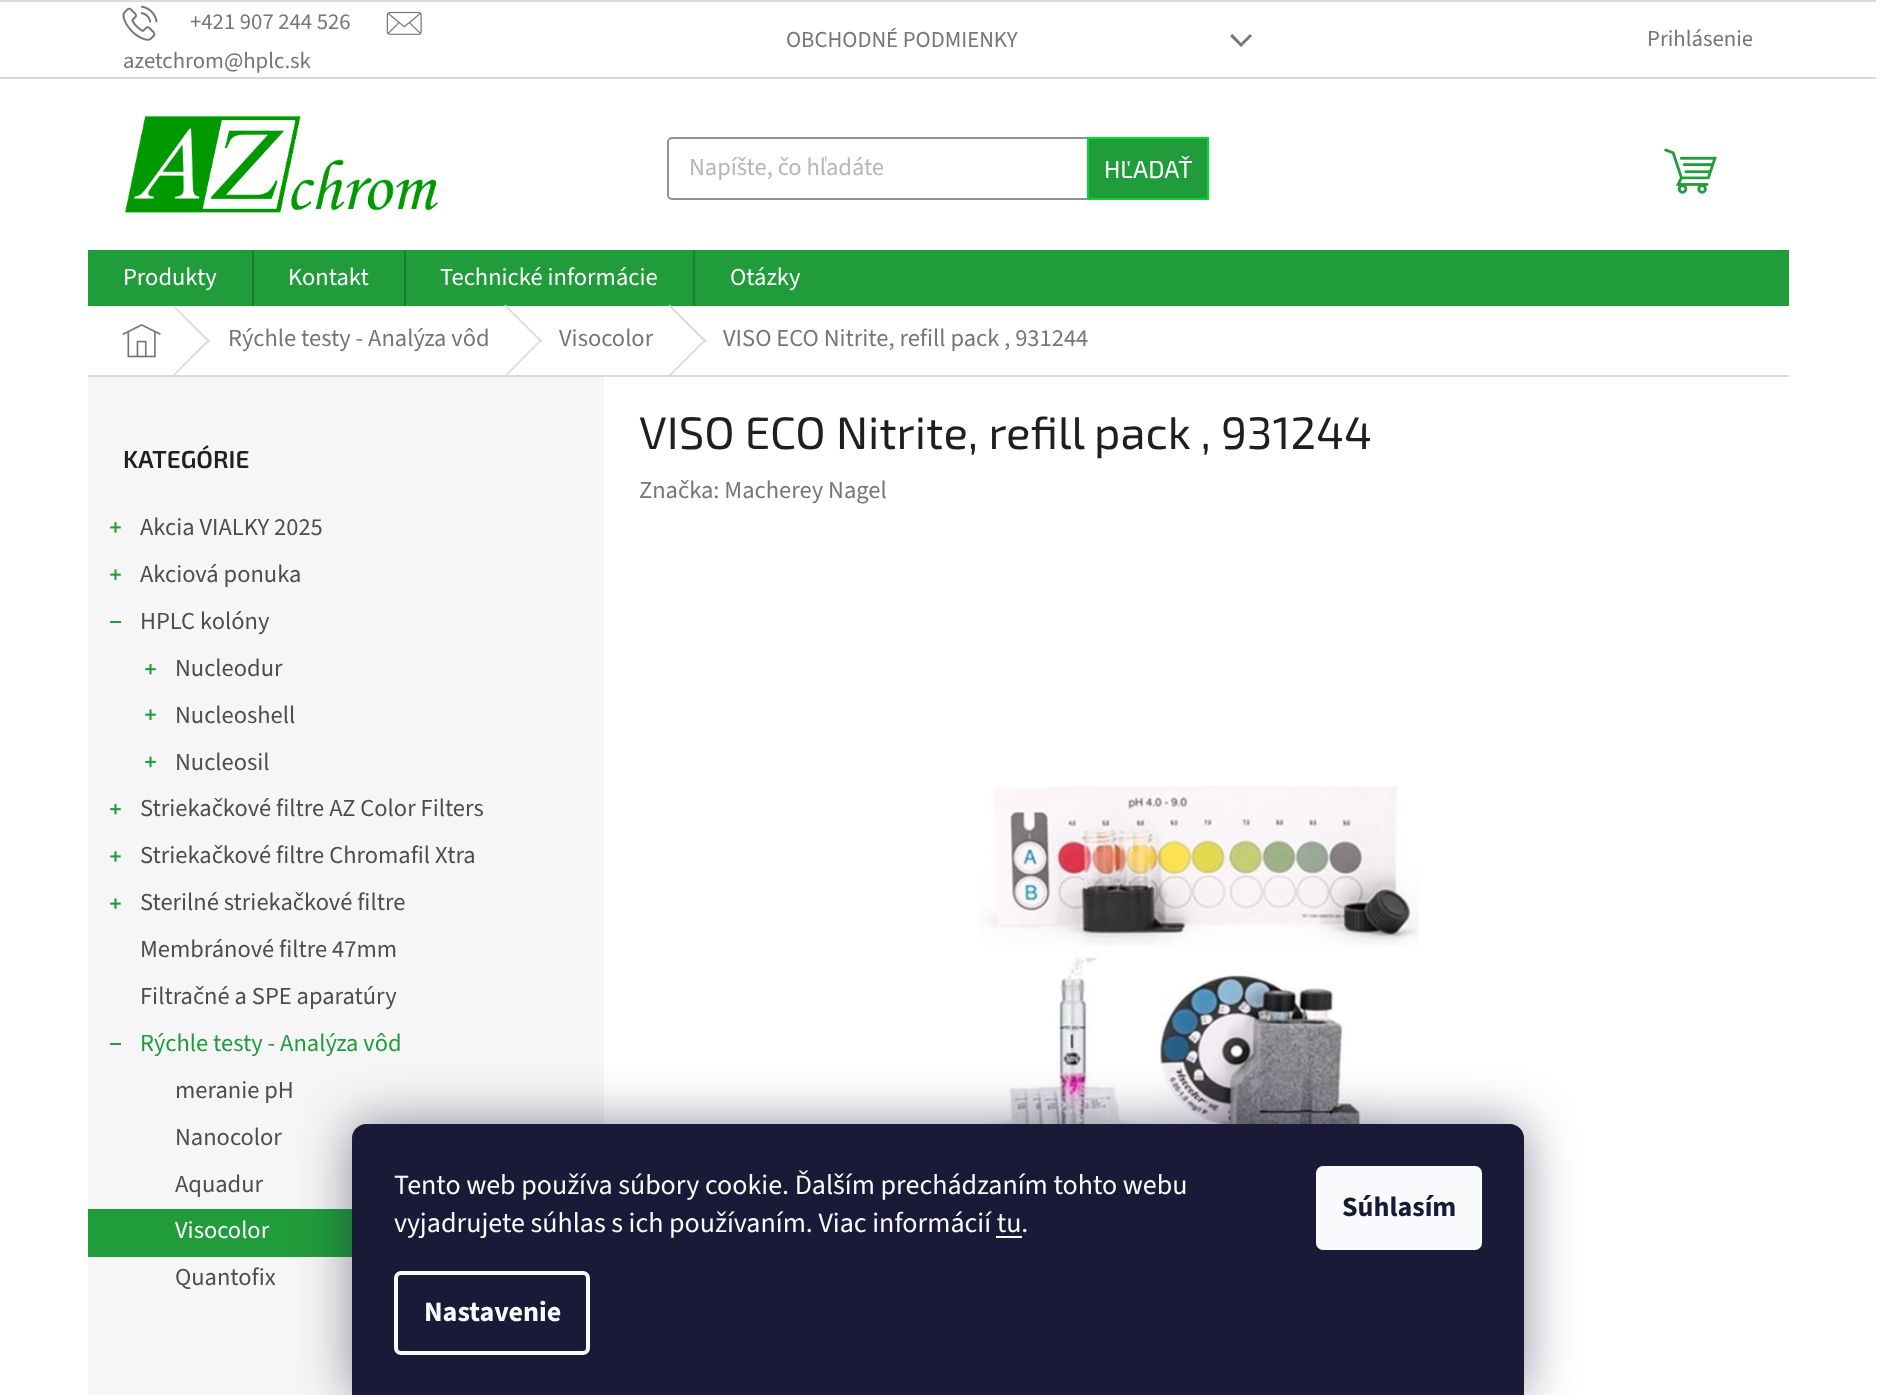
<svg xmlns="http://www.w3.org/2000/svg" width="1901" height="1395">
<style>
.a{font:22.75px 'Source Sans 3';fill:#767676}
.b{font:24.5px 'Source Sans 3';fill:#b6b6b6}
.c{font:24.5px 'Exo 2';fill:#fff}
.d{font:24.5px 'Source Sans 3';fill:#fff}
.e{font:24.5px 'Source Sans 3';fill:#767676}
.f{font:600 24.5px 'Exo 2';fill:#1f1f1f}
.g{font:24.5px 'Source Sans 3';fill:#4d4d4d}
.h{font:24.5px 'Source Sans 3';fill:#219c3a}
.i{font:45.5px 'Exo 2';fill:#1f1f1f}
.j{font:28px 'Source Sans 3';fill:#f8fafb}
.k{font:bold 28px 'Source Sans 3';fill:#f8fafb}
.l{font:bold 28px 'Source Sans 3';fill:#1a1937}
</style>
<rect width="100%" height="100%" fill="#fff"/>
<path fill="#dadada" d="M0 0h1876v2H0z"/>
<path fill="#dadada" d="M0 77h1876v2H0z"/>
<image href="1.png" x="122" y="5" width="36" height="36"/>
<image href="2.png" x="386" y="11" width="36" height="24"/>
<path fill="#767676" d="M1230 36l2.5-2l8.5 9l9-9l2 2l-11 11z"/>
<image href="3.png" x="124" y="115" width="316" height="98"/>
<rect fill="none" stroke="#919191" stroke-width="2" x="668" y="138" width="540" height="61" rx="4"/>
<path fill="#219c3a" stroke="#00db2c" stroke-width="2" d="M1088 138h120v61H1088z"/>
<image href="4.png" x="1664" y="148" width="53" height="46"/>
<path fill="#219c3a" d="M88 250h1701v56H88z"/>
<path fill="#1b7e2f" d="M252 250h2v56H252z"/>
<path fill="#1b7e2f" d="M404 250h2v56H404z"/>
<path fill="#1b7e2f" d="M693 250h2v56H693z"/>
<path fill="#dadada" d="M88 375h1701v2H88z"/>
<image href="5.png" x="122" y="324" width="39" height="34"/>
<path fill="#dadada" d="M173.5 307l1-1l35.5 35l-1.5 1.5z"/>
<path fill="#dadada" d="M208.5 339l1.5 1.5l-35.5 35l-1-1z"/>
<path fill="#dadada" d="M504.5 306l1-1.5l36.5 36.5l-1 1.5z"/>
<path fill="#dadada" d="M541 339l1 1l-36.5 37l-1-1.5z"/>
<path fill="#dadada" d="M668.5 306l1-1.5l37 36.5l-1.5 1.5z"/>
<path fill="#dadada" d="M705 339l1.5 1l-37 37l-1-1.5z"/>
<path fill="#f6f6f6" d="M88 377h516v1018H88z"/>
<image href="6.png" x="110" y="522" width="11" height="11"/>
<image href="7.png" x="110" y="569" width="11" height="11"/>
<path fill="#219c3a" d="M110 621h11v2H110z"/>
<image href="8.png" x="145" y="663" width="11" height="12"/>
<image href="7.png" x="145" y="709" width="11" height="11"/>
<image href="9.png" x="145" y="756" width="11" height="12"/>
<image href="8.png" x="110" y="803" width="11" height="12"/>
<image href="6.png" x="110" y="851" width="11" height="11"/>
<image href="7.png" x="110" y="898" width="11" height="11"/>
<path fill="#219c3a" d="M110 1043h11v2H110z"/>
<path fill="#219c3a" d="M88 1209h264v48H88z"/>
<image href="10.png" x="978" y="786" width="441" height="338"/>
<rect fill="#1b193980" filter="blur(26px)" x="352" y="1124" width="1172" height="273" rx="14"/>
<path fill="#1a1937" d="M366 1124h1144c7.5 0 14 6.5 14 14v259h-1172v-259c0-7.5 6.5-14 14-14z"/>
<path fill="#f8fafb" d="M996 1236h26v2H996z"/>
<rect fill="none" stroke="#f8fafb" stroke-width="4" x="396" y="1273" width="192" height="80" rx="5"/>
<rect fill="#f8fafb" x="1316" y="1166" width="166" height="84" rx="7"/>
<text class="a" x="190" y="29">+421 907 244 526</text>
<text class="a" x="123" y="68">azetchrom@hplc.sk</text>
<text class="a" x="786" y="47">OBCHODNÉ PODMIENKY</text>
<text class="a" x="1647" y="46">Prihlásenie</text>
<text class="b" x="689" y="175">Napíšte, čo hľadáte</text>
<text class="c" x="1104" y="178">HĽADAŤ</text>
<text class="d" x="123" y="285">Produkty</text>
<text class="d" x="288" y="285">Kontakt</text>
<text class="d" x="440" y="285">Technické informácie</text>
<text class="d" x="730" y="285">Otázky</text>
<text class="e" x="228" y="346">Rýchle testy - Analýza vôd</text>
<text class="e" x="559" y="346">Visocolor</text>
<text class="e" x="723" y="346">VISO ECO Nitrite, refill pack , 931244</text>
<text class="f" x="123" y="468">KATEGÓRIE</text>
<text class="g" x="140" y="535">Akcia VIALKY 2025</text>
<text class="g" x="140" y="582">Akciová ponuka</text>
<text class="g" x="140" y="629">HPLC kolóny</text>
<text class="g" x="175" y="676">Nucleodur</text>
<text class="g" x="175" y="723">Nucleoshell</text>
<text class="g" x="175" y="770">Nucleosil</text>
<text class="g" x="140" y="816">Striekačkové filtre AZ Color Filters</text>
<text class="g" x="140" y="863">Striekačkové filtre Chromafil Xtra</text>
<text class="g" x="140" y="910">Sterilné striekačkové filtre</text>
<text class="g" x="140" y="957">Membránové filtre 47mm</text>
<text class="g" x="140" y="1004">Filtračné a SPE aparatúry</text>
<text class="h" x="140" y="1051">Rýchle testy - Analýza vôd</text>
<text class="g" x="175" y="1098">meranie pH</text>
<text class="g" x="175" y="1145">Nanocolor</text>
<text class="g" x="175" y="1192">Aquadur</text>
<text class="d" x="175" y="1238">Visocolor</text>
<text class="g" x="175" y="1285">Quantofix</text>
<text class="i" x="639" y="449">VISO ECO Nitrite, refill pack , 931244</text>
<text class="e" x="639" y="498">Značka: Macherey Nagel</text>
<text class="j" x="394" y="1194">Tento web používa súbory cookie. Ďalším prechádzaním tohto webu</text>
<text class="j" x="394" y="1232">vyjadrujete súhlas s ich používaním. Viac informácií tu.</text>
<text class="k" x="424" y="1321">Nastavenie</text>
<text class="l" x="1342" y="1216">Súhlasím</text>
</svg>
